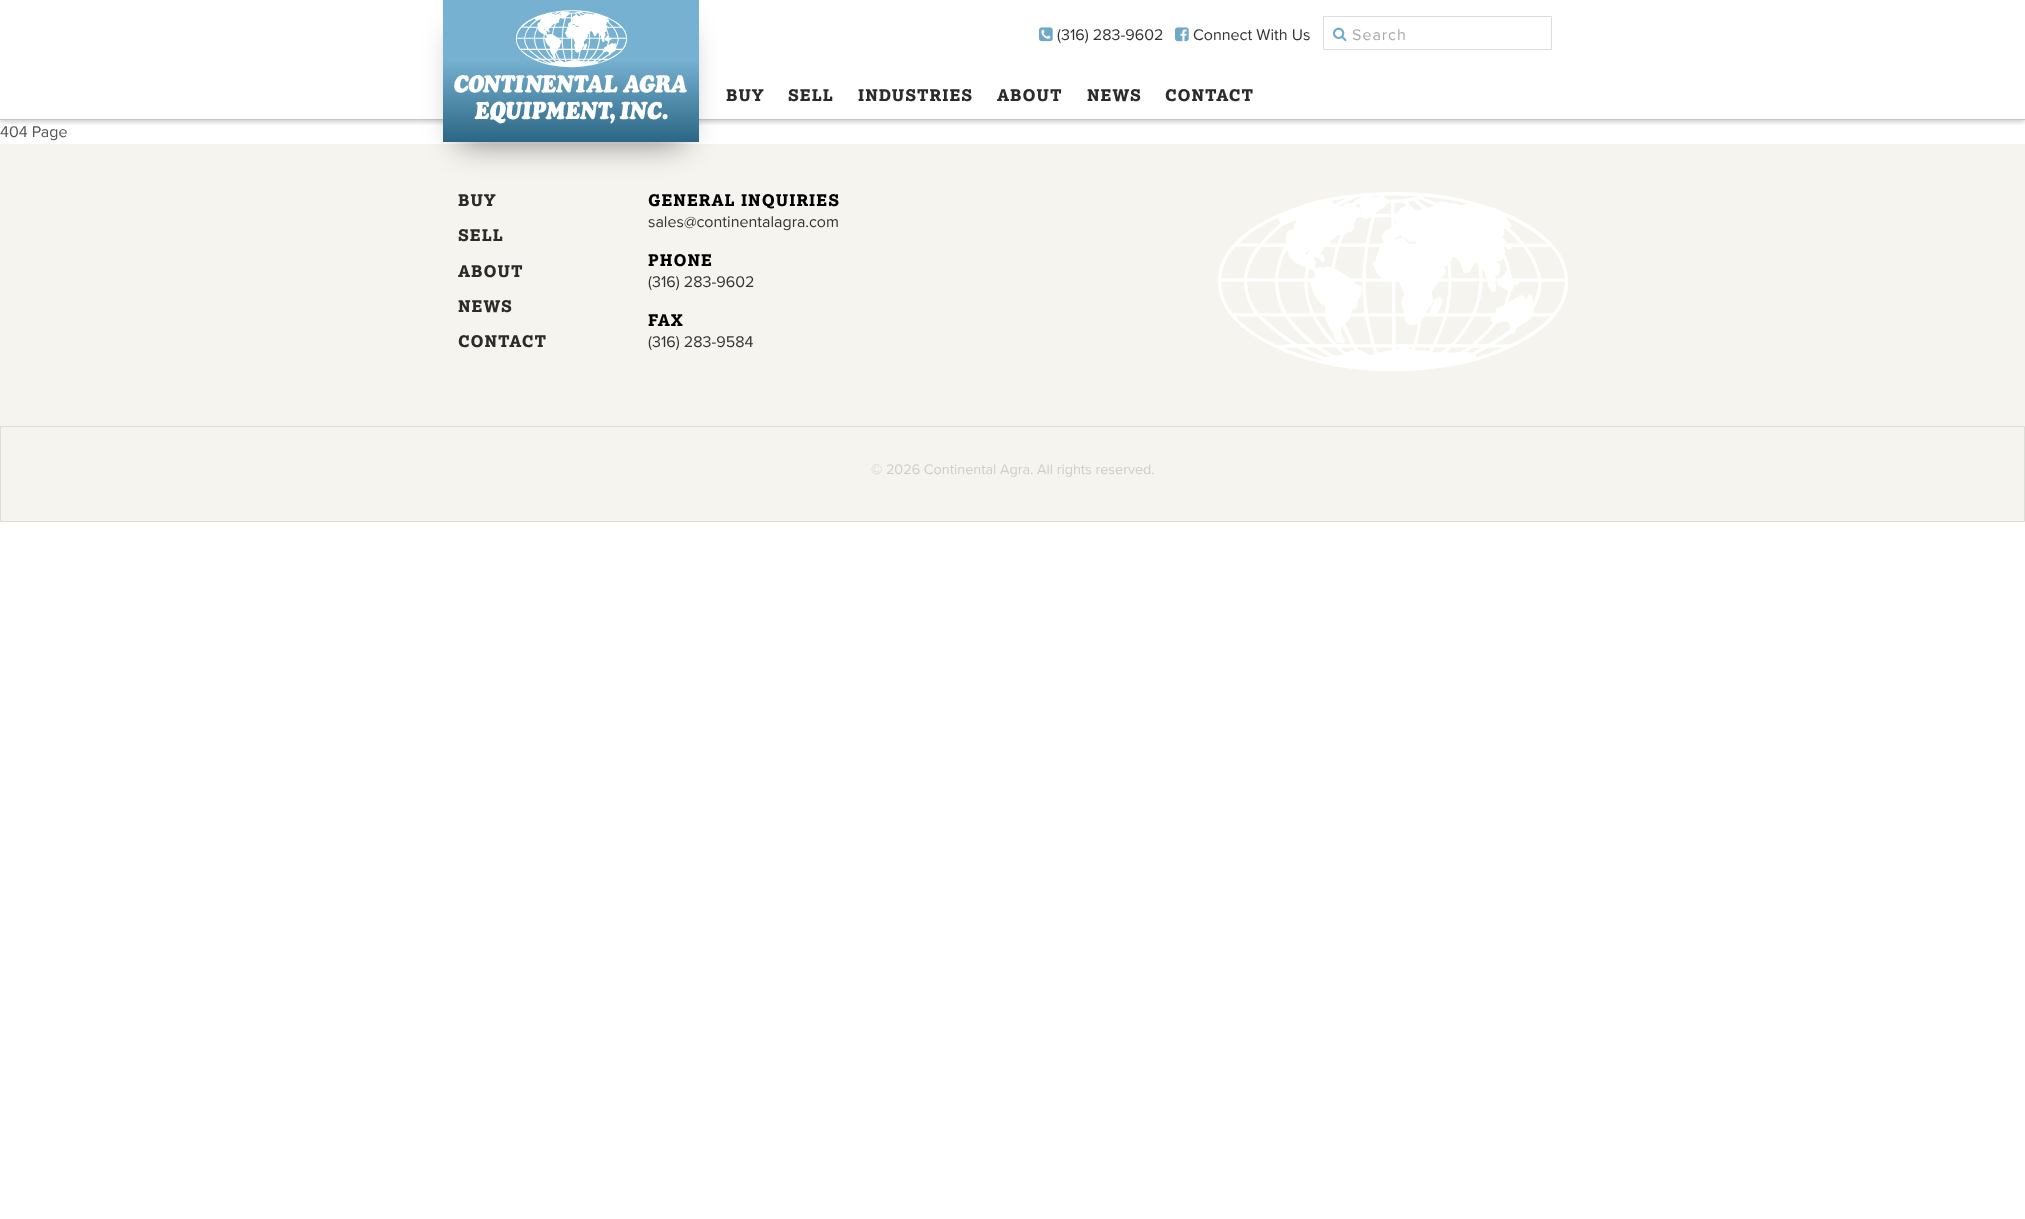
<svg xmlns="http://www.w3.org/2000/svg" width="2025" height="1219">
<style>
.a{font:16px Proxima Nova;fill:#333}
.b{font:16px Proxima Nova;letter-spacing:1px;fill:#aaa}
.c{font:bold 16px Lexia;letter-spacing:1px;fill:#2b2b2b}
.d{font:16px Proxima Nova;fill:#555}
.e{font:bold 16px Lexia;letter-spacing:1px;fill:#000}
.f{font:14.4px Proxima Nova;fill:#cfcecb}
</style>
<defs>
<clipPath id="clip1"><path d="M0 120h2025v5H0z"/></clipPath>
<linearGradient id="g1" gradientUnits="userSpaceOnUse" x1="571" y1="0" x2="571" y2="142"><stop offset="0.42" stop-color="#77b1d1"/><stop offset="1" stop-color="#2b6685"/></linearGradient>
</defs>
<rect width="100%" height="100%" fill="#fff"/>
<g clip-path="url(#clip1)">
<path fill="#00000033" filter="blur(2.5px)" d="M0 2h2025v120H0z"/>
</g>
<path fill="#c8c4c0" d="M0 119h2025v1H0z"/>
<path fill="#f5f4ef" d="M0 144h2025v282H0z"/>
<path fill="#00000080" filter="blur(16px)" d="M459 32h224v110H459z"/>
<path fill="url(#g1)" d="M443 0h256v142H443z"/>
<image href="1.png" x="454" y="10" width="233" height="114"/>
<image href="2.png" x="1039" y="27" width="14" height="15"/>
<image href="3.png" x="1175" y="27" width="14" height="15"/>
<path fill="none" stroke="#ddd" d="M1323.5 16.5h228v33H1323.5z"/>
<image href="4.png" x="1333" y="27" width="14" height="14"/>
<image href="5.png" x="1218" y="192" width="350" height="179"/>
<path fill="#f5f4ef" stroke="#deddd9" d="M0.5 426.5h2024v95H0.5z"/>
<text class="a" x="1057" y="40">(316) 283-9602</text>
<text class="a" x="1193" y="40">Connect With Us</text>
<text class="b" x="1352" y="40">Search</text>
<text class="c" x="726" y="101">BUY</text>
<text class="c" x="788" y="101">SELL</text>
<text class="c" x="858" y="101">INDUSTRIES</text>
<text class="c" x="997" y="101">ABOUT</text>
<text class="c" x="1087" y="101">NEWS</text>
<text class="c" x="1165" y="101">CONTACT</text>
<text class="d" x="0" y="137">404 Page</text>
<text class="c" x="458" y="206">BUY</text>
<text class="c" x="458" y="241">SELL</text>
<text class="c" x="458" y="277">ABOUT</text>
<text class="c" x="458" y="312">NEWS</text>
<text class="c" x="458" y="347">CONTACT</text>
<text class="e" x="648" y="206">GENERAL INQUIRIES</text>
<text class="a" x="648" y="227">sales@continentalagra.com</text>
<text class="e" x="648" y="266">PHONE</text>
<text class="a" x="648" y="287">(316) 283-9602</text>
<text class="e" x="648" y="326">FAX</text>
<text class="a" x="648" y="347">(316) 283-9584</text>
<text class="f" x="871" y="474">© 2026 Continental Agra. All rights reserved.</text>
</svg>
